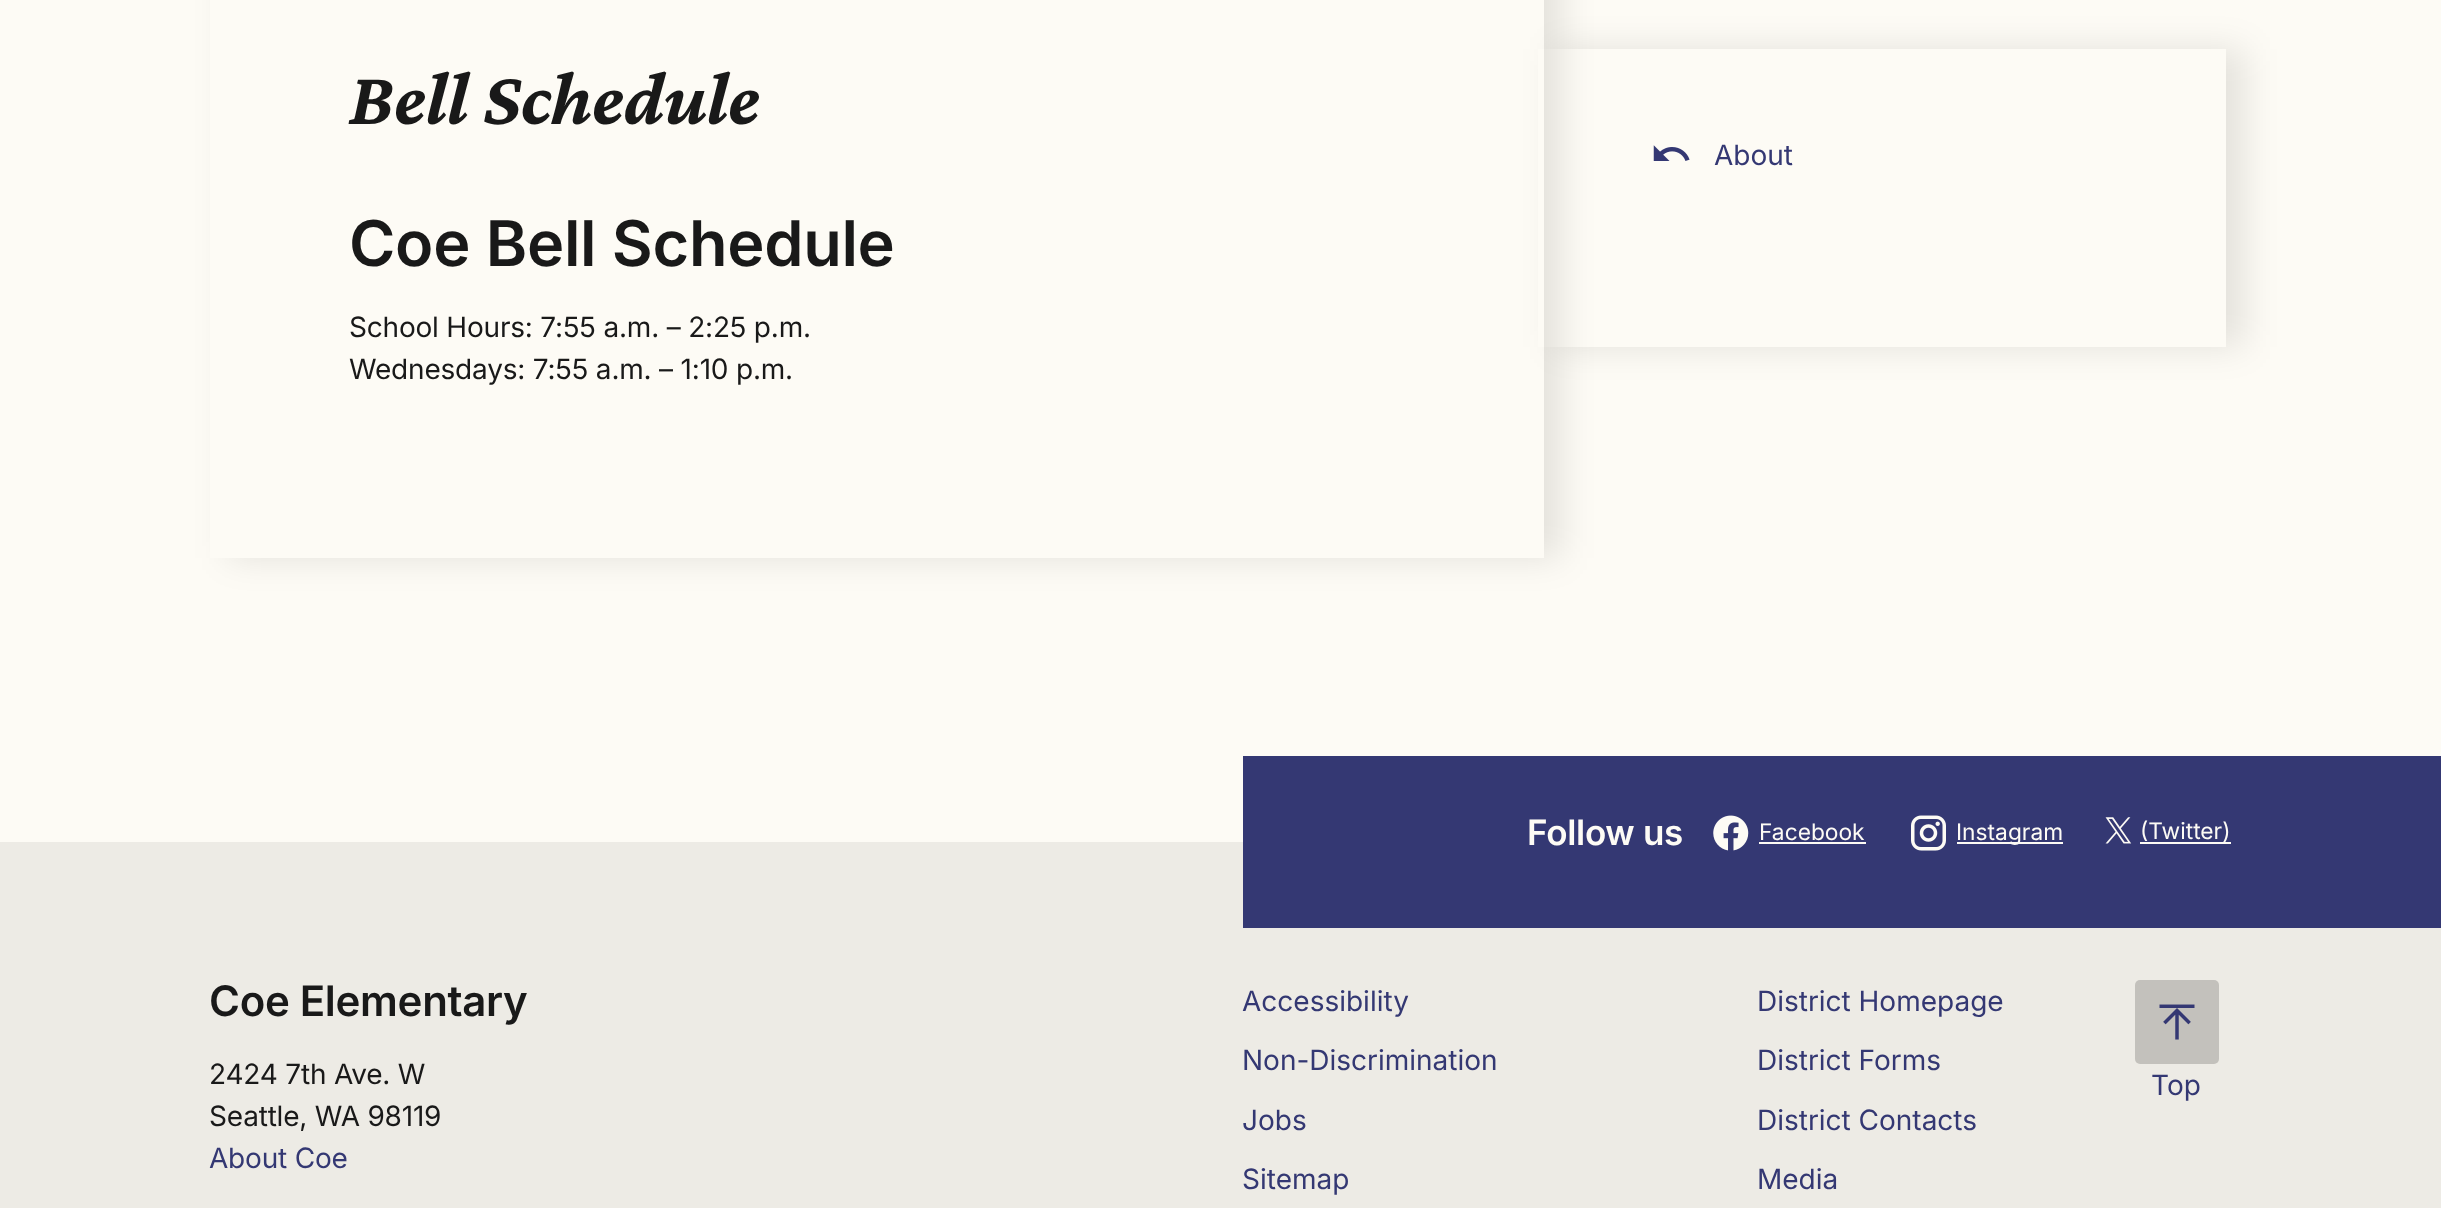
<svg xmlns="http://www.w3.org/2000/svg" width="2441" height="1208">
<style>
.a{font:italic bold 77px Crimson Pro;letter-spacing:-0.3px;fill:#191919}
.b{font:600 63px Inter;letter-spacing:-0.3px;fill:#191919}
.c{font:28px Inter;letter-spacing:-0.2px;fill:#191919}
.d{font:28px Inter;fill:#343873}
.e{font:600 35px Inter;letter-spacing:-0.3px;fill:#fdfbf5}
.f{font:22.75px Inter;fill:#fdfbf5}
.g{font:600 42px Inter;letter-spacing:-0.3px;fill:#191919}
.h{font:28px Inter;letter-spacing:-0.2px;fill:#343873}
</style>
<defs>
<clipPath id="clip1"><path d="M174 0h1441v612h-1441zm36-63h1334v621h-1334z" clip-rule="evenodd"/></clipPath>
<clipPath id="clip2"><path d="M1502 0h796v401h-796zm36 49h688v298h-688z" clip-rule="evenodd"/></clipPath>
</defs>
<rect width="100%" height="100%" fill="#fdfbf5"/>
<g clip-path="url(#clip1)">
<path fill="#0000001a" filter="blur(17.5px)" d="M228 -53h1333v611H228z"/>
</g>
<g clip-path="url(#clip2)">
<path fill="#0000001a" filter="blur(17.5px)" d="M1556 49h688v298H1556z"/>
</g>
<image href="1.png" x="1653" y="145" width="37" height="16"/>
<path fill="#edebe5" d="M0 842h2441v366H0z"/>
<path fill="#343873" d="M1243 756h1198v172H1243z"/>
<image href="2.png" x="1713" y="815" width="36" height="36"/>
<path fill="#fdfbf5" d="M1759 842h107v2H1759z"/>
<image href="3.png" x="1911" y="815" width="35" height="36"/>
<path fill="#fdfbf5" d="M1957 842h106v2H1957z"/>
<image href="4.png" x="2105" y="817" width="27" height="27"/>
<path fill="#fdfbf5" d="M2140 842h91v2H2140z"/>
<rect fill="#c3c1bc" x="2135" y="980" width="84" height="84" rx="5"/>
<image href="5.png" x="2159" y="1004" width="36" height="36"/>
<text class="a" x="349" y="124">Bell Schedule</text>
<text class="b" x="349" y="266">Coe Bell Schedule</text>
<text class="c" x="349" y="337">School Hours: 7:55 a.m. – 2:25 p.m.</text>
<text class="c" x="349" y="379">Wednesdays: 7:55 a.m. – 1:10 p.m.</text>
<text class="d" x="1714" y="165">About</text>
<text class="e" x="1527" y="845">Follow us</text>
<text class="f" x="1759" y="840">Facebook</text>
<text class="f" x="1956" y="840">Instagram</text>
<text class="f" x="2140" y="839">(Twitter)</text>
<text class="g" x="209" y="1016">Coe Elementary</text>
<text class="c" x="209" y="1084">2424 7th Ave. W</text>
<text class="c" x="209" y="1126">Seattle, WA 98119</text>
<text class="h" x="209" y="1168">About Coe</text>
<text class="d" x="1242" y="1011">Accessibility</text>
<text class="d" x="1757" y="1011">District Homepage</text>
<text class="d" x="1242" y="1070">Non-Discrimination</text>
<text class="d" x="1757" y="1070">District Forms</text>
<text class="d" x="1242" y="1130">Jobs</text>
<text class="d" x="1757" y="1130">District Contacts</text>
<text class="d" x="1242" y="1189">Sitemap</text>
<text class="d" x="1757" y="1189">Media</text>
<text class="d" x="2151" y="1095">Top</text>
</svg>
